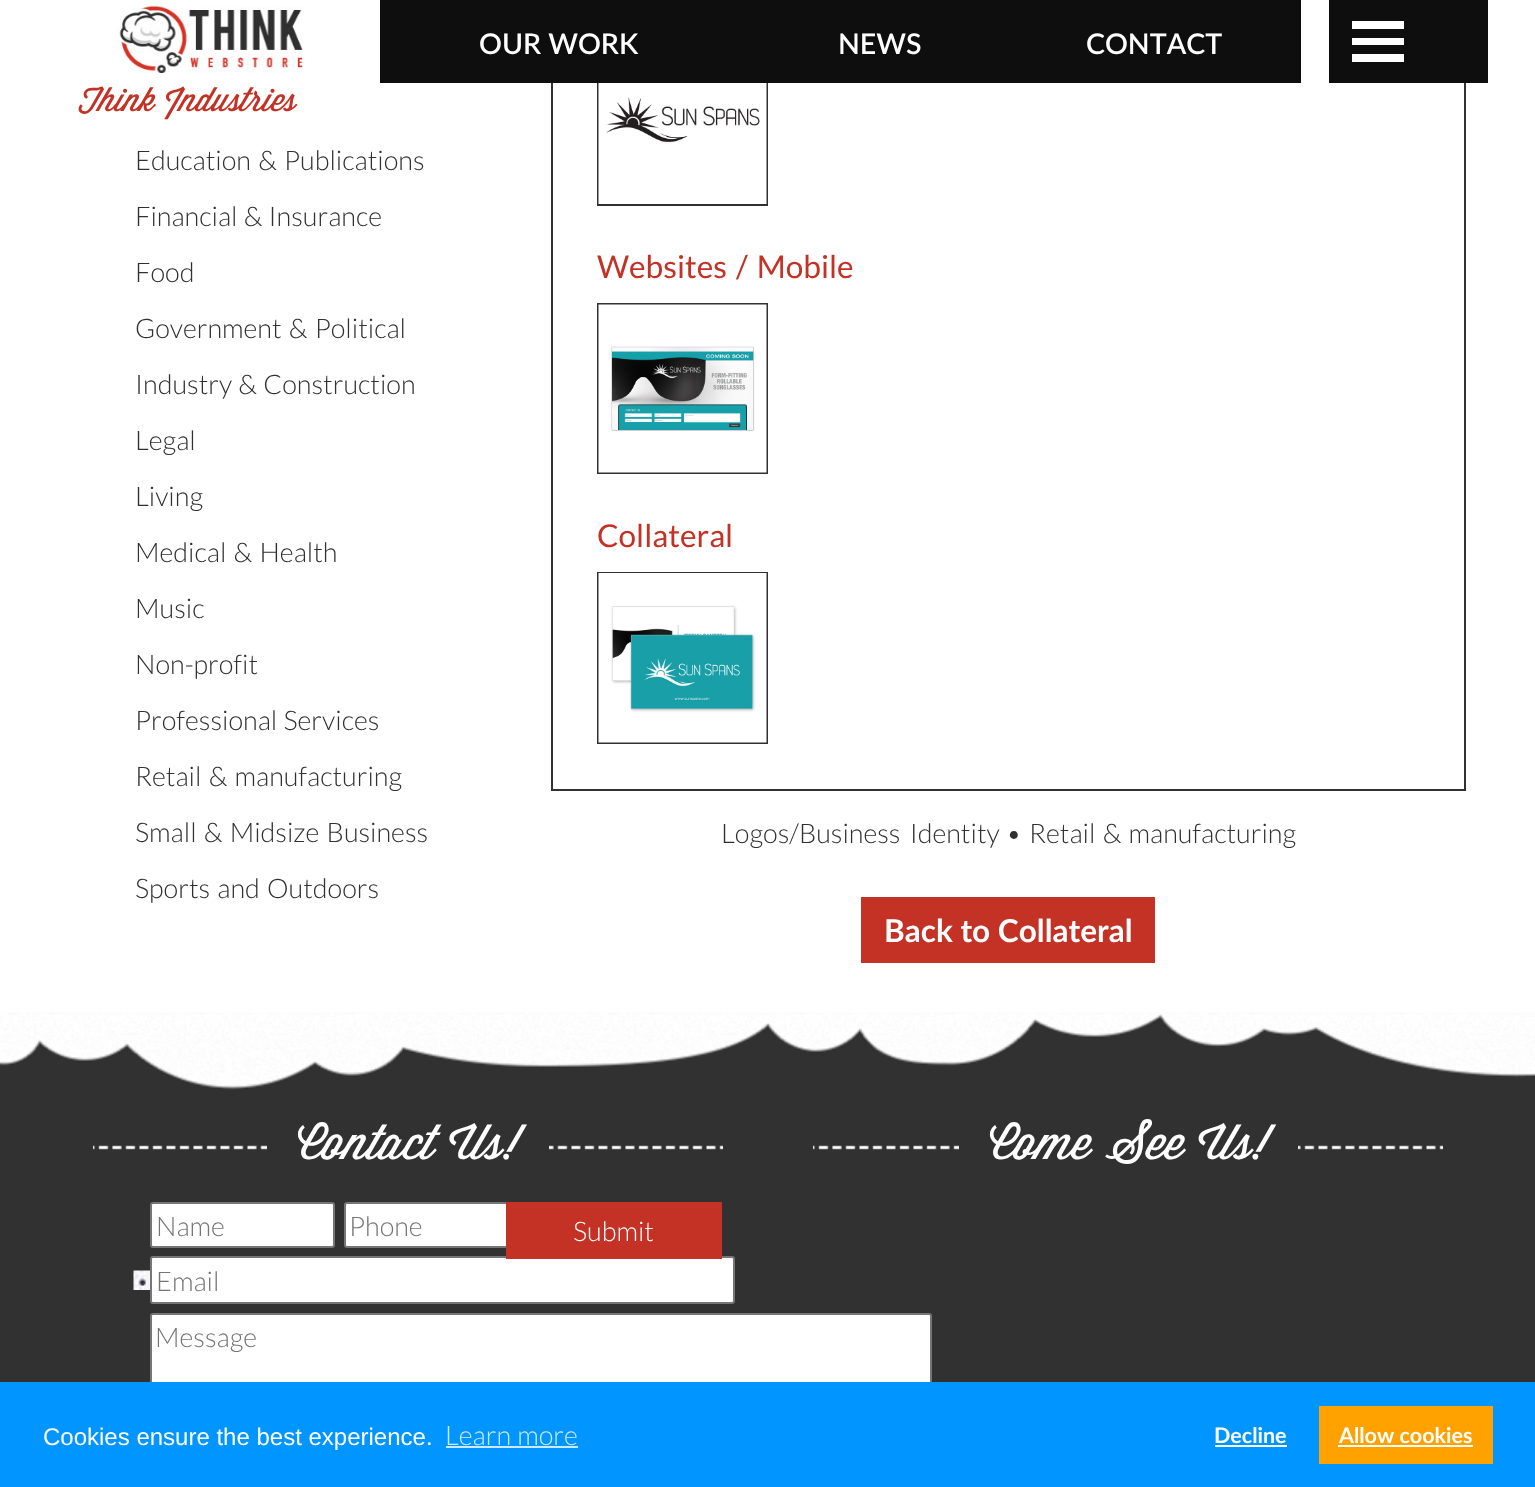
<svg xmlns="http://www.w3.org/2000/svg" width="1535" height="1487">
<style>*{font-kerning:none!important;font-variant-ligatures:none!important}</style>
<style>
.a{font:600 28.5px Lato;fill:#fff}
.b{font:33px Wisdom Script;fill:#c43125}
.c{font:300 27px Lato;fill:#303130}
.d{font:31.5px Lato;fill:#c43125}
.e{font:bold 31.5px Lato;fill:#fff}
.f{font:48px Wisdom Script;fill:#fff}
.g{font:300 27px Lato;fill:#757575}
.h{font:300 27px Lato;fill:#fff}
.i{font:24px Liberation Sans;fill:#fff}
.j{font:300 27px Lato;fill:#cceaff}
.k{font:bold 21.5px Lato;fill:#fff}
</style>
<rect width="100%" height="100%" fill="#fff"/>
<image href="1.png" x="116" y="0" width="187" height="73"/>
<path fill="none" stroke="#303130" stroke-width="2" d="M598 36h169v169H598z"/>
<path fill="#0e0e0f" d="M380 0h921v83H380z"/>
<path fill="#0e0e0f" d="M1329 0h159v83H1329z"/>
<path fill="#fff" d="M1352 21h52v8H1352z"/>
<path fill="#fff" d="M1352 38h52v7H1352z"/>
<path fill="#fff" d="M1352 54h52v8H1352z"/>
<path fill="#303130" d="M1464 83h2v708H1464z"/>
<path fill="#303130" d="M551 789h915v2H551z"/>
<path fill="#303130" d="M551 83h2v708H551z"/>
<image href="2.png" x="598" y="83" width="169" height="121"/>
<path fill="none" stroke="#303130" stroke-width="2" d="M598 304h169v169H598z"/>
<image href="3.png" x="598" y="304" width="169" height="169"/>
<path fill="none" stroke="#303130" stroke-width="2" d="M598 573h169v170H598z"/>
<image href="4.png" x="598" y="573" width="169" height="170"/>
<path fill="#c43125" d="M861 897h294v66H861z"/>
<image href="5.png" x="0" y="1008" width="1535" height="93"/>
<path fill="#303130" d="M0 1101h1535v281H0z"/>
<image href="6.png" x="93" y="1145" width="630" height="5"/>
<path fill="#303130" d="M267 1145h282v5H267z"/>
<rect fill="#fff" stroke="#767676" stroke-width="2" x="151" y="1203" width="183" height="44" rx="2"/>
<rect fill="#fff" stroke="#767676" stroke-width="2" x="345" y="1203" width="344" height="44" rx="2"/>
<image href="7.png" x="133" y="1270" width="17" height="20"/>
<rect fill="#fff" stroke="#767676" stroke-width="2" x="151" y="1257" width="583" height="46" rx="2"/>
<rect fill="#fff" stroke="#767676" stroke-width="2" x="151" y="1314" width="780" height="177" rx="2"/>
<path fill="#c43125" d="M506 1202h216v57H506z"/>
<image href="8.png" x="813" y="1145" width="630" height="5"/>
<path fill="#303130" d="M959 1145h339v5H959z"/>
<path fill="#0095ff" d="M0 1382h1535v105H0z"/>
<path fill="#cceaff" d="M446 1446h132v2H446z"/>
<path fill="#fff" d="M1215 1445h72v2H1215z"/>
<path fill="#ffa200" d="M1319 1406h174v58H1319z"/>
<path fill="#fff" d="M1338 1445h135v2H1338z"/>
<text class="a" x="479" y="54">OUR WORK</text>
<text class="a" x="838" y="54">NEWS</text>
<text class="a" x="1086" y="54">CONTACT</text>
<text class="b" x="78" y="111">Think Industries</text>
<text class="c" x="135" y="170" word-spacing="2">Education &amp; Publications</text>
<text class="c" x="135" y="226" word-spacing="1">Financial &amp; Insurance</text>
<text class="c" x="135" y="282">Food</text>
<text class="c" x="135" y="338" word-spacing="2">Government &amp; Political</text>
<text class="c" x="135" y="394" word-spacing="1">Industry &amp; Construction</text>
<text class="c" x="135" y="450">Legal</text>
<text class="c" x="135" y="506">Living</text>
<text class="c" x="135" y="562" word-spacing="2">Medical &amp; Health</text>
<text class="c" x="135" y="618">Music</text>
<text class="c" x="135" y="674">Non-profit</text>
<text class="c" x="135" y="730" word-spacing="1">Professional Services</text>
<text class="c" x="135" y="786" word-spacing="2">Retail &amp; manufacturing</text>
<text class="c" x="135" y="842" word-spacing="2">Small &amp; Midsize Business</text>
<text class="c" x="135" y="898" word-spacing="2">Sports and Outdoors</text>
<text class="d" x="597" y="278" word-spacing="3">Websites / Mobile</text>
<text class="d" x="597" y="547">Collateral</text>
<text class="c" x="721" y="843" word-spacing="4">Logos/Business Identity</text>
<text class="c" x="1006" y="843">•</text>
<text class="c" x="1029" y="843" word-spacing="2">Retail &amp; manufacturing</text>
<text class="e" x="884" y="942">Back to Collateral</text>
<text class="f" x="297" y="1159">Contact Us!</text>
<text class="g" x="156" y="1236">Name</text>
<text class="g" x="349" y="1236">Phone</text>
<text class="g" x="156" y="1291">Email</text>
<text class="g" x="155" y="1347">Message</text>
<text class="h" x="573" y="1241">Submit</text>
<text class="f" x="989" y="1159">Come See Us!</text>
<text class="i" x="43" y="1445">Cookies ensure the best experience.</text>
<text class="j" x="445" y="1445" word-spacing="1">Learn more</text>
<text class="k" x="1214" y="1443">Decline</text>
<text class="k" x="1339" y="1443">Allow cookies</text>
</svg>
